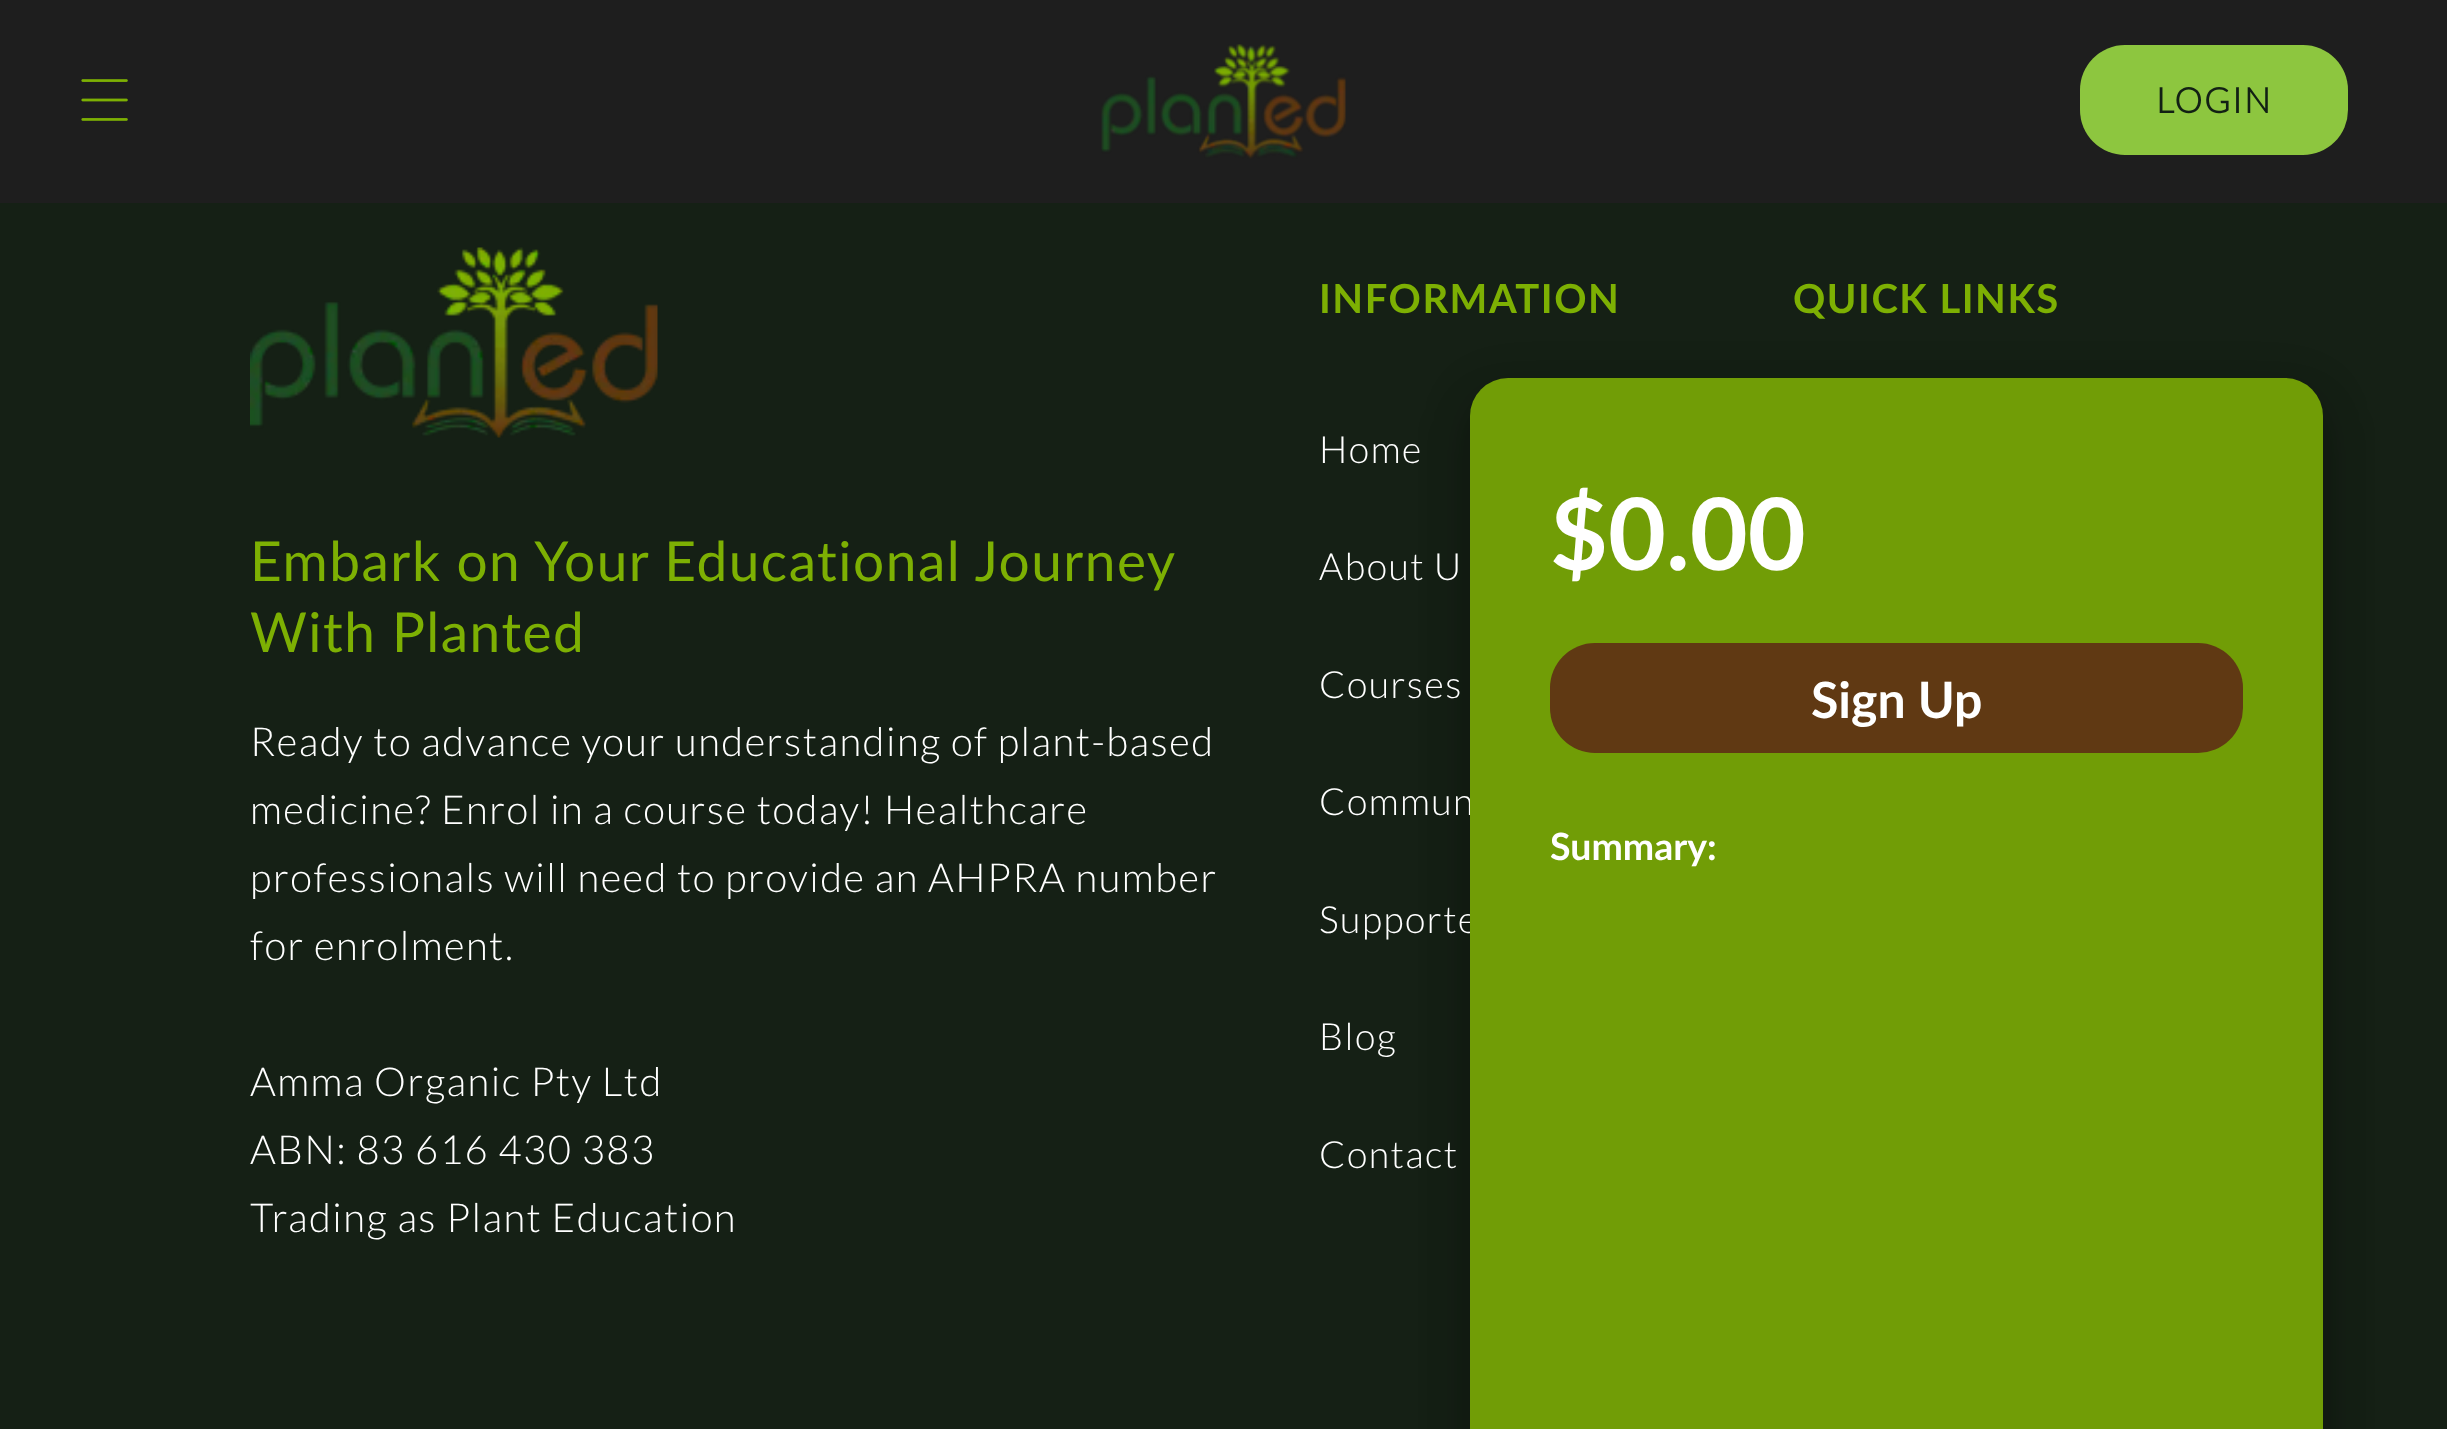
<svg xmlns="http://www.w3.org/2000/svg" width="2447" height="1429">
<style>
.a{font:bold 35px 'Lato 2';letter-spacing:1.75px;fill:#122014}
.b{font:bold 40px Lato;letter-spacing:1.5px;fill:#7db003}
.c{font:300 37.5px Lato;letter-spacing:1.5px;fill:#fff}
.d{font:55px Lato;letter-spacing:1.5px;fill:#7db003}
.e{font:300 40px Lato;letter-spacing:1.5px;fill:#fff}
.f{font:bold 100px Lato;fill:#fff}
.g{font:bold 50px Lato;fill:#fff}
.h{font:bold 37.5px Lato;fill:#fff}
</style>
<rect width="100%" height="100%" fill="#152015"/>
<path fill="#1e1e1e" d="M0 0h2447v203H0z"/>
<image href="1.png" x="81" y="79" width="47" height="42"/>
<image href="2.png" x="1101" y="44" width="245" height="115"/>
<rect fill="#8dc63f" x="2080" y="45" width="268" height="110" rx="45"/>
<image href="3.png" x="250" y="247" width="408" height="191"/>
<rect fill="#00000030" filter="blur(25px)" x="1470" y="393" width="853" height="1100" rx="38"/>
<rect fill="#00000033" filter="blur(20px)" x="1470" y="403" width="853" height="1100" rx="38"/>
<text class="a" x="2156" y="113">LOGIN</text>
<text class="b" x="1319" y="313">INFORMATION</text>
<text class="c" x="1319" y="463">Home</text>
<text class="c" x="1319" y="580">About U</text>
<text class="c" x="1319" y="698">Courses</text>
<text class="c" x="1319" y="815">Commun</text>
<text class="c" x="1319" y="933">Supporte</text>
<text class="c" x="1319" y="1050">Blog</text>
<text class="c" x="1319" y="1168">Contact</text>
<text class="b" x="1793" y="313">QUICK LINKS</text>
<text class="d" x="250" y="581" word-spacing="-0.5">Embark on Your Educational Journey</text>
<text class="d" x="250" y="652">With Planted</text>
<text class="e" x="250" y="756">Ready to advance your understanding of plant-based</text>
<text class="e" x="250" y="824">medicine? Enrol in a course today! Healthcare</text>
<text class="e" x="250" y="892">professionals will need to provide an AHPRA number</text>
<text class="e" x="250" y="960">for enrolment.</text>
<text class="e" x="250" y="1096">Amma Organic Pty Ltd</text>
<text class="e" x="250" y="1164">ABN: 83 616 430 383</text>
<text class="e" x="250" y="1232">Trading as Plant Education</text>
<rect fill="#719d06" x="1470" y="378" width="853" height="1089" rx="38"/>
<text class="f" x="1550" y="570">$0.00</text>
<rect fill="#603913" x="1550" y="643" width="693" height="110" rx="45"/>
<text class="g" x="1811" y="718">Sign Up</text>
<text class="h" x="1550" y="860">Summary:</text>
</svg>
